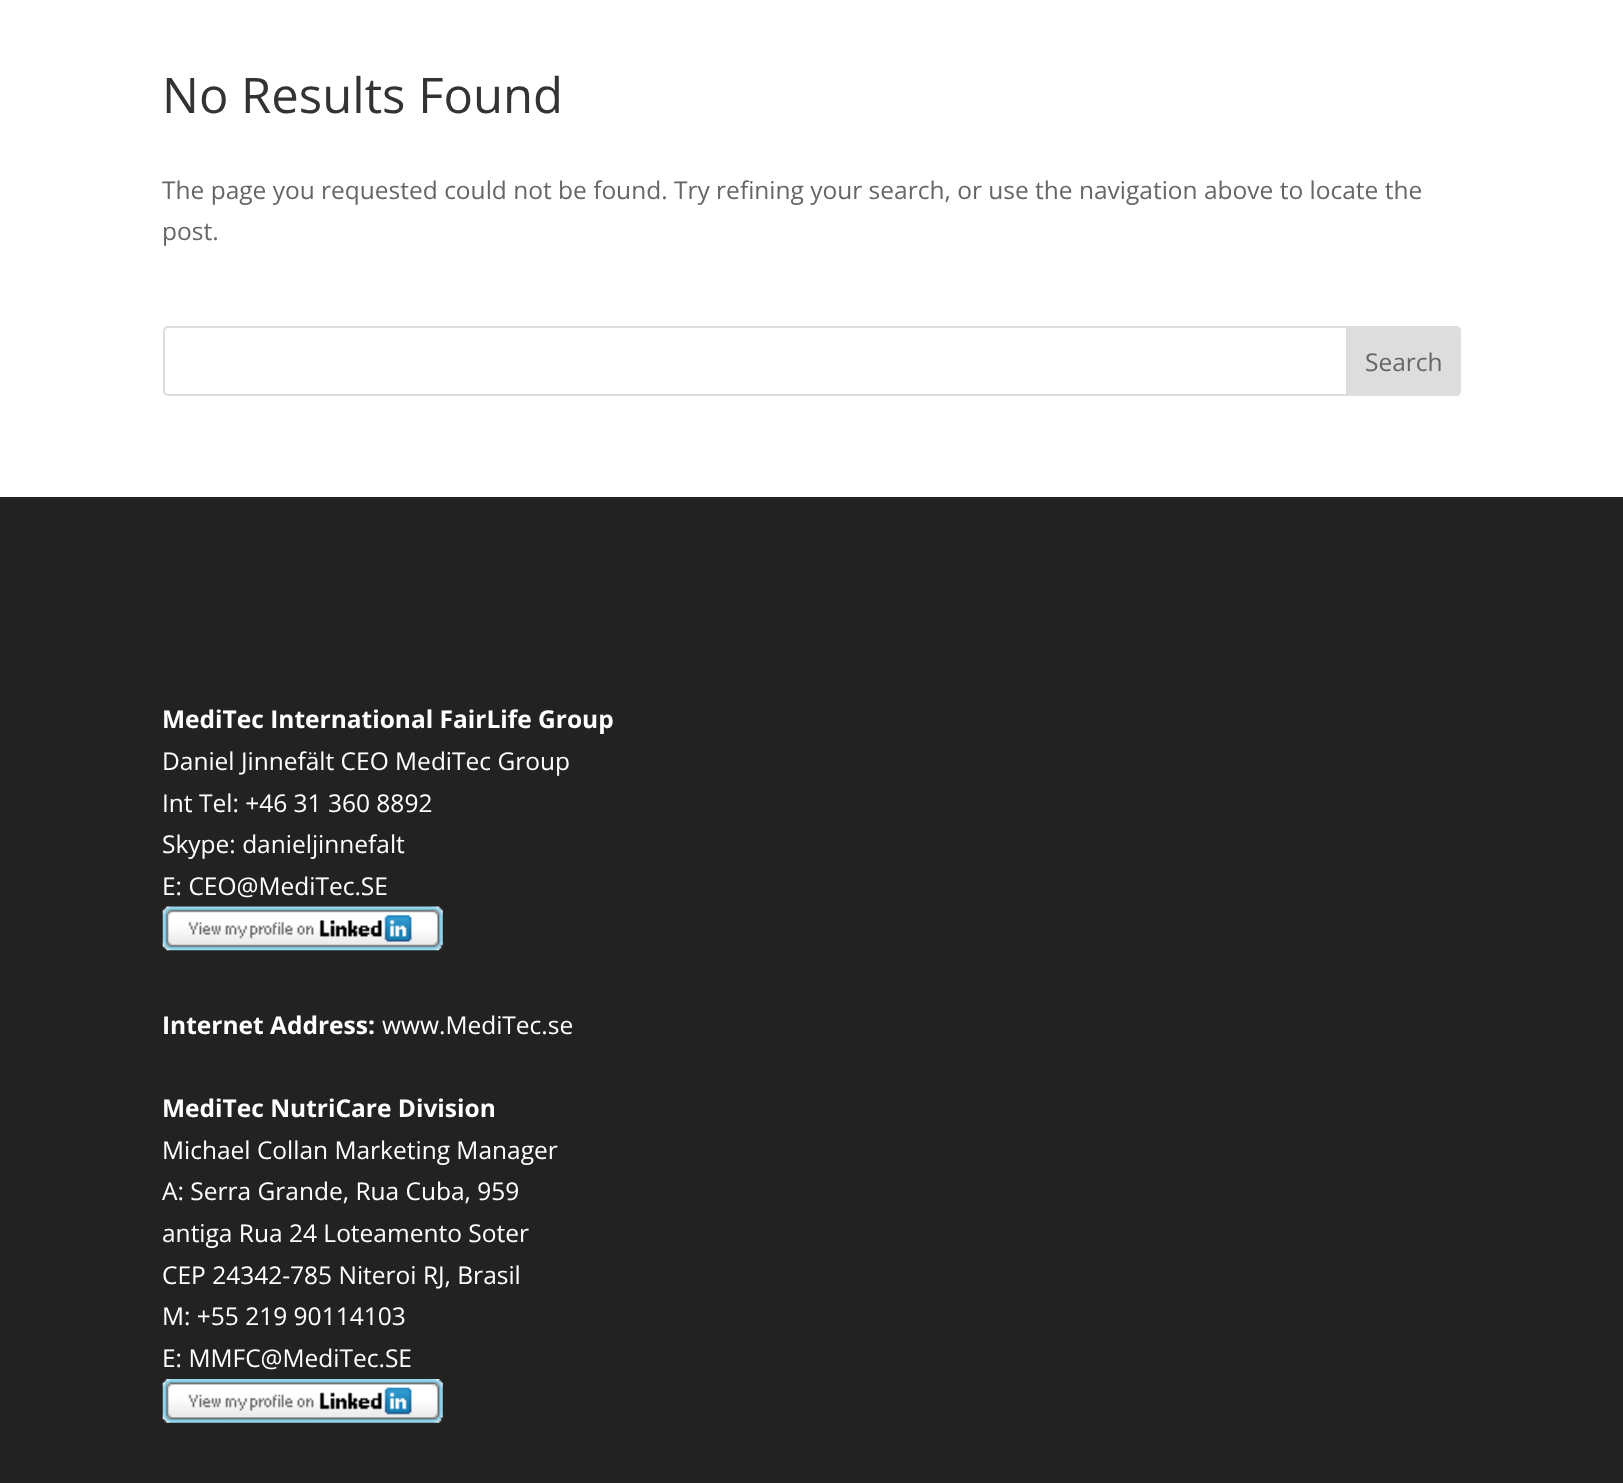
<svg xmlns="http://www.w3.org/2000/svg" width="1623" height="1483">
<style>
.a{font:49px Open Sans;fill:#333}
.b{font:24.5px Open Sans;fill:#666}
.c{font:bold 24.5px Open Sans;fill:#fff}
.d{font:24.5px Open Sans;fill:#fff}
</style>
<rect width="100%" height="100%" fill="#fff"/>
<rect fill="none" stroke="#ddd" stroke-width="2" x="164" y="327" width="1296" height="68" rx="4"/>
<path fill="#ddd" stroke="#ddd" stroke-width="2" d="M1347 327h109c2 0 4 2 4 4v60c0 2-2 4-4 4h-109z"/>
<path fill="#222" d="M0 497h1623v986H0z"/>
<image href="1.png" x="162" y="906" width="281" height="45"/>
<image href="2.png" x="162" y="1379" width="281" height="44"/>
<text class="a" x="162" y="113">No Results Found</text>
<text class="b" x="162" y="199">The page you requested could not be found. Try refining your search, or use the navigation above to locate the</text>
<text class="b" x="162" y="240">post.</text>
<text class="b" x="1365" y="371">Search</text>
<text class="c" x="162" y="728">MediTec International FairLife Group</text>
<text class="d" x="162" y="770">Daniel Jinnefält CEO MediTec Group</text>
<text class="d" x="162" y="812">Int Tel: +46 31 360 8892</text>
<text class="d" x="162" y="853">Skype: danieljinnefalt</text>
<text class="d" x="162" y="895">E: CEO@MediTec.SE</text>
<text class="c" x="162" y="1034">Internet Address:</text>
<text class="d" x="382" y="1034">www.MediTec.se</text>
<text class="c" x="162" y="1117">MediTec NutriCare Division</text>
<text class="d" x="162" y="1159">Michael Collan Marketing Manager</text>
<text class="d" x="162" y="1200">A: Serra Grande, Rua Cuba, 959</text>
<text class="d" x="162" y="1242">antiga Rua 24 Loteamento Soter</text>
<text class="d" x="162" y="1284">CEP 24342-785 Niteroi RJ, Brasil</text>
<text class="d" x="162" y="1325">M: +55 219 90114103</text>
<text class="d" x="162" y="1367">E: MMFC@MediTec.SE</text>
</svg>
